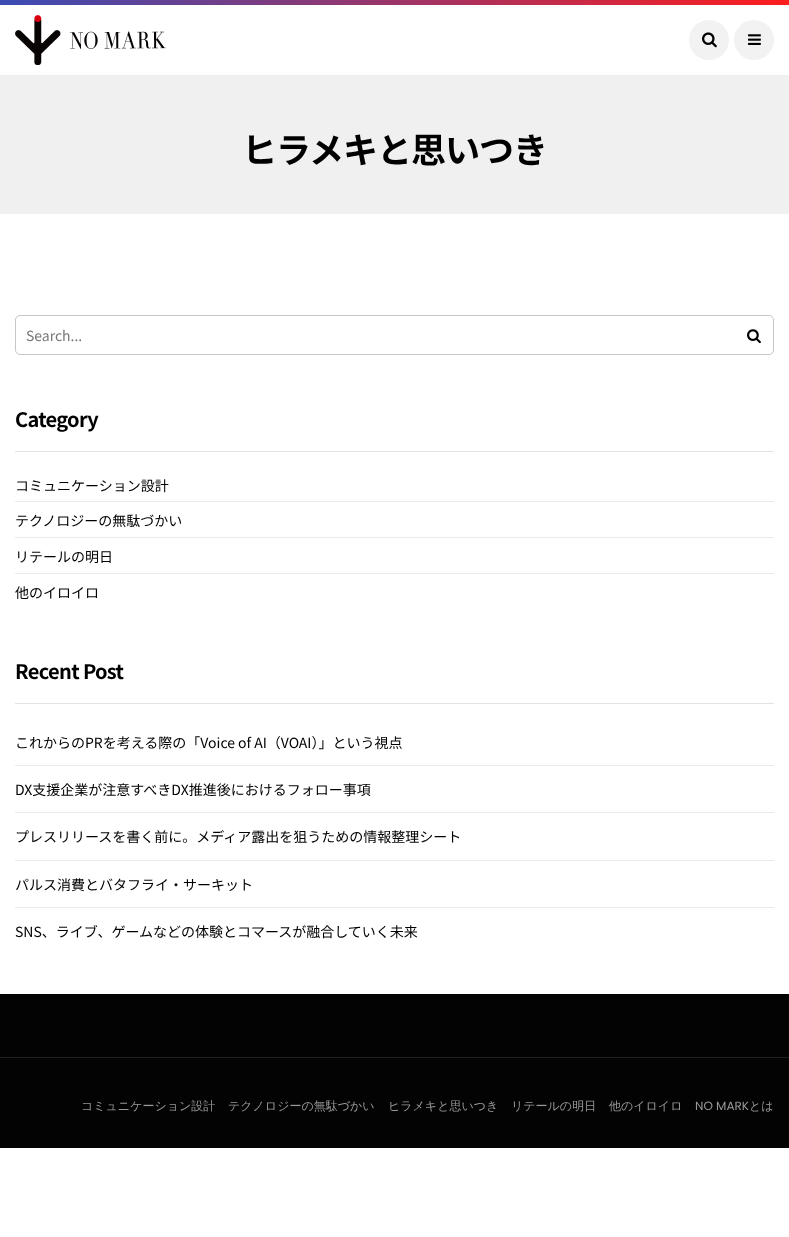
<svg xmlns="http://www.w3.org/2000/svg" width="789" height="1237">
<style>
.a{font:bold 35px Noto Sans JP;letter-spacing:-1px;fill:#000}
.b{font:14px Noto Sans JP;fill:#757575}
.c{font:bold 20px Noto Sans JP;letter-spacing:-0.6px;fill:#000}
.d{font:14px Noto Sans JP;fill:#000}
.e{font:500 12px WenQuanYi Zen Hei;fill:#999}
.f{font:12px Poppins;fill:#999}
</style>
<defs>
<linearGradient id="g1" gradientUnits="userSpaceOnUse" x1="0" y1="2.5" x2="789" y2="2.5"><stop offset="0" stop-color="#3a4cb4"/><stop offset="1" stop-color="#fd1d1d"/></linearGradient>
</defs>
<rect width="100%" height="100%" fill="#fff"/>
<path fill="url(#g1)" d="M0 0h789v5H0z"/>
<path fill="#eee" d="M0 75h789v1H0z"/>
<image href="1.png" x="15" y="15" width="151" height="50"/>
<circle fill="#f2f2f2" cx="709" cy="40" r="20"/>
<image href="2.png" x="702" y="32" width="15" height="16"/>
<circle fill="#f2f2f2" cx="754" cy="40" r="20"/>
<image href="3.png" x="748" y="34" width="13" height="11"/>
<path fill="#f0f0f0" d="M0 76h789v138H0z"/>
<rect fill="none" stroke="#c6c6c6" x="15.5" y="315.5" width="758" height="39" rx="4.5"/>
<image href="4.png" x="747" y="329" width="14" height="15"/>
<path fill="#e2e3e7" d="M15 451h759v1H15z"/>
<path fill="#eaeaea" d="M15 501h759v1H15z"/>
<path fill="#eaeaea" d="M15 537h759v1H15z"/>
<path fill="#eaeaea" d="M15 573h759v1H15z"/>
<path fill="#e2e3e7" d="M15 703h759v1H15z"/>
<path fill="#eaeaea" d="M15 765h759v1H15z"/>
<path fill="#eaeaea" d="M15 812h759v1H15z"/>
<path fill="#eaeaea" d="M15 860h759v1H15z"/>
<path fill="#eaeaea" d="M15 907h759v1H15z"/>
<path fill="#030303" d="M0 994h789v154H0z"/>
<path fill="#202020" d="M0 1057h789v1H0z"/>
<text class="a" x="242" y="163">ヒラメキと思いつき</text>
<text class="b" x="26" y="341">Search...</text>
<text class="c" x="15" y="427">Category</text>
<text class="d" x="15" y="491">コミュニケーション設計</text>
<text class="d" x="15" y="526">テクノロジーの無駄づかい</text>
<text class="d" x="15" y="562">リテールの明日</text>
<text class="d" x="15" y="598">他のイロイロ</text>
<text class="c" x="15" y="679">Recent Post</text>
<text class="d" x="15" y="748">これからのPRを考える際の「Voice of AI（VOAI）」という視点</text>
<text class="d" x="15" y="795">DX支援企業が注意すべきDX推進後におけるフォロー事項</text>
<text class="d" x="15" y="842">プレスリリースを書く前に。メディア露出を狙うための情報整理シート</text>
<text class="d" x="15" y="890">パルス消費とバタフライ・サーキット</text>
<text class="d" x="15" y="937">SNS、ライブ、ゲームなどの体験とコマースが融合していく未来</text>
<text class="e" x="81" y="1110">コミュニケーション設計</text>
<text class="e" x="228" y="1110">テクノロジーの無駄づかい</text>
<text class="e" x="388" y="1110">ヒラメキと思いつき</text>
<text class="e" x="511" y="1110">リテールの明日</text>
<text class="e" x="609" y="1110">他のイロイロ</text>
<text class="f" x="695" y="1110">NO MARK</text>
<text class="e" x="749" y="1110">とは</text>
</svg>
